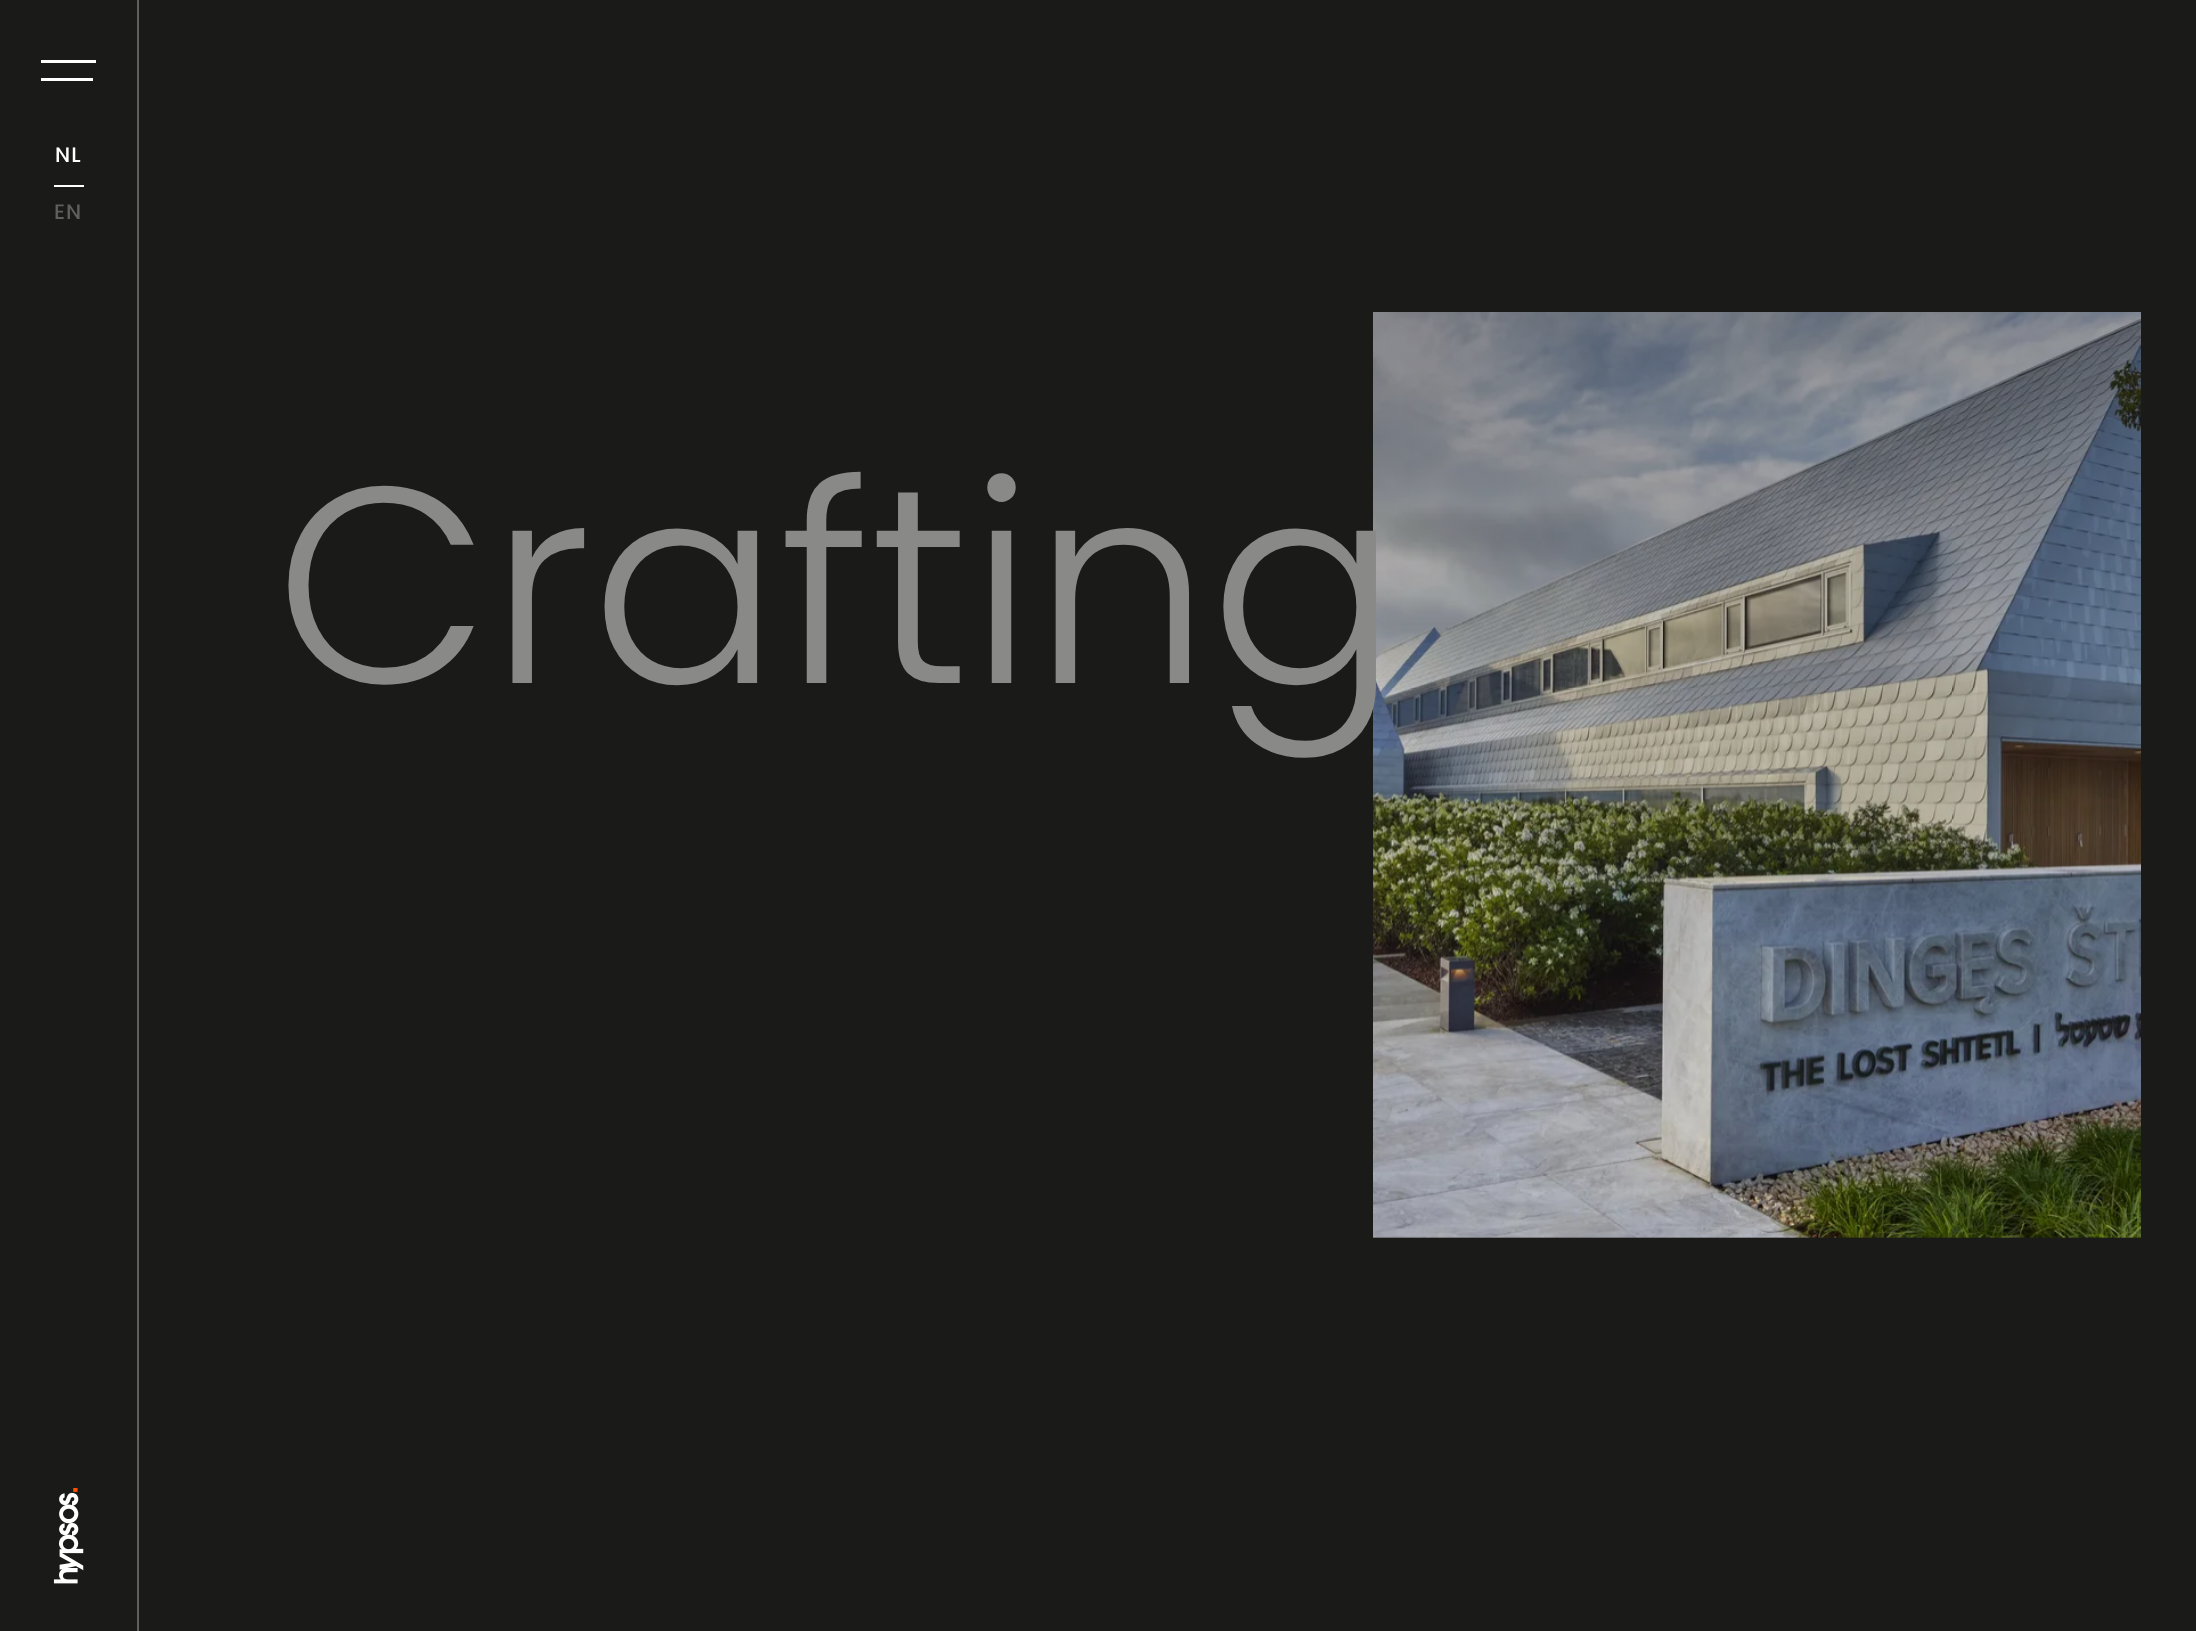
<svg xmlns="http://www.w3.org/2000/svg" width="2196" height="1631">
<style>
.a{font:500 21px Poppins;letter-spacing:1px;fill:#fff}
.b{font:500 21px Poppins;letter-spacing:1px;fill:#5f5f5d}
.c{font:300 279px Poppins;fill:#898988}
</style>
<defs>
<linearGradient id="g1" gradientUnits="userSpaceOnUse" x1="1757" y1="108" x2="1757" y2="1238"><stop offset="0" stop-color="#1a1a18" stop-opacity="0.5"/><stop offset="1" stop-color="#1a1a18" stop-opacity="0"/></linearGradient>
</defs>
<rect width="100%" height="100%" fill="#1a1a18"/>
<path fill="#fff" d="M41 60h55v3H41z"/>
<path fill="#fff" d="M41 78h52v3H41z"/>
<path fill="#5f5f5d" d="M137 0h2v1631H137z"/>
<path fill="#fff" d="M54 185h30v2H54z"/>
<image href="1.png" x="53" y="1488" width="31" height="96"/>
<image href="2.png" x="1373" y="312" width="768" height="926"/>
<path fill="url(#g1)" d="M1373 312h768v877H1373z"/>
<text class="a" x="55" y="162">NL</text>
<text class="b" x="54" y="219">EN</text>
<text class="c" x="275" y="683">Crafting</text>
</svg>
